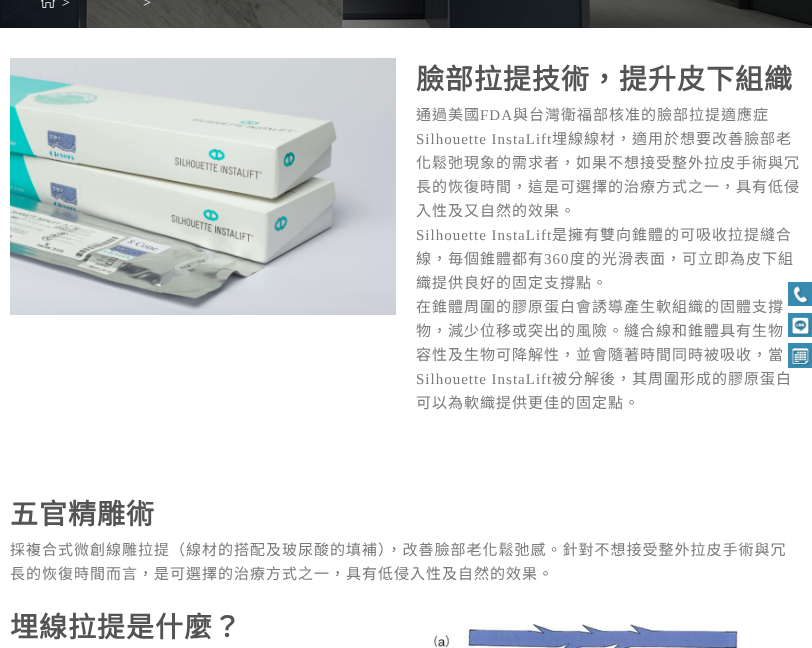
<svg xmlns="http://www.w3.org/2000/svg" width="812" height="648">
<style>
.a{font:14px Liberation Serif;letter-spacing:1px;fill:#f9f9f9}
.b{font:bold 28px Noto Sans CJK TC;letter-spacing:1px;fill:#545454}
.c{font:15px Noto Sans CJK TC;letter-spacing:1px;fill:#7a7a7a}
.d{font:15px Liberation Serif;letter-spacing:1px;fill:#7a7a7a}
</style>
<rect width="100%" height="100%" fill="#fff"/>
<image href="1.png" x="0" y="0" width="812" height="28"/>
<image href="2.png" x="41" y="0" width="14" height="8"/>
<image href="3.png" x="10" y="58" width="386" height="257"/>
<image href="4.png" x="433" y="623" width="309" height="25"/>
<image href="5.png" x="788" y="282" width="24" height="24"/>
<image href="6.png" x="788" y="313" width="24" height="24"/>
<image href="7.png" x="788" y="343" width="24" height="25"/>
<text class="a" x="62" y="7">&gt;</text>
<text class="a" x="143" y="7">&gt;</text>
<text class="b" x="416" y="89">臉部拉提技術，提升皮下組織</text>
<text class="c" x="416" y="120">通過美國</text>
<text class="d" x="480" y="120">FDA</text>
<text class="c" x="513" y="120">與台灣衛福部核准的臉部拉提適應症</text>
<text class="d" x="416" y="144">Silhouette InstaLift</text>
<text class="c" x="552" y="144">埋線線材，適用於想要改善臉部老</text>
<text class="c" x="416" y="168">化鬆弛現象的需求者，如果不想接受整外拉皮手術與冗</text>
<text class="c" x="416" y="192">長的恢復時間，這是可選擇的治療方式之一，具有低侵</text>
<text class="c" x="416" y="216">入性及又自然的效果。</text>
<text class="d" x="416" y="240">Silhouette InstaLift</text>
<text class="c" x="552" y="240">是擁有雙向錐體的可吸收拉提縫合</text>
<text class="c" x="416" y="264">線，毎個錐體都有</text>
<text class="d" x="544" y="264">360</text>
<text class="c" x="570" y="264">度的光滑表面，可立即為皮下組</text>
<text class="c" x="416" y="288">織提供良好的固定支撐點。</text>
<text class="c" x="416" y="312">在錐體周圍的膠原蛋白會誘導產生軟組織的固體支撐</text>
<text class="c" x="416" y="336">物，減少位移或突出的風險。縫合線和錐體具有生物</text>
<text class="c" x="416" y="360">容性及生物可降解性，並會隨著時間同時被吸收，當</text>
<text class="d" x="416" y="384">Silhouette InstaLift</text>
<text class="c" x="552" y="384">被分解後，其周圍形成的膠原蛋白</text>
<text class="c" x="416" y="408">可以為軟織提供更佳的固定點。</text>
<text class="b" x="10" y="524">五官精雕術</text>
<text class="c" x="10" y="555">採複合式微創線雕拉提（線材的搭配及玻尿酸的填補），改善臉部老化鬆弛感。針對不想接受整外拉皮手術與冗</text>
<text class="c" x="10" y="579">長的恢復時間而言，是可選擇的治療方式之一，具有低侵入性及自然的效果。</text>
<text class="b" x="10" y="637">埋線拉提是什麼？</text>
</svg>
